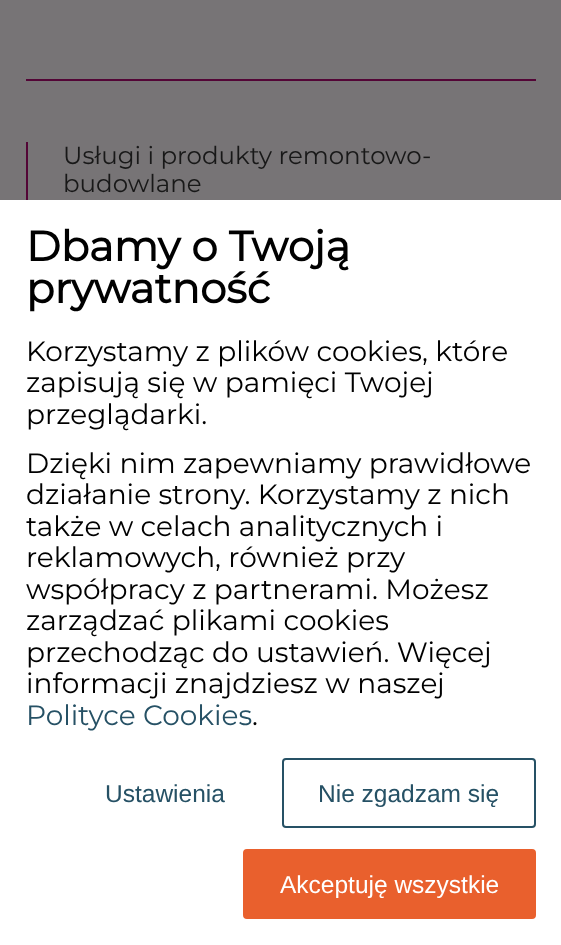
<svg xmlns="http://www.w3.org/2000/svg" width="561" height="945">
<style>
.a{font:100 24.5px Montserrat;fill:#181818}
.b{font:bold 42px Montserrat;fill:#000}
.c{font:100 28px Montserrat;fill:#000}
.d{font:100 28px Montserrat;fill:#265165}
.e{font:24.5px Liberation Sans;fill:#265165}
.f{font:24.5px Liberation Sans;fill:#fff}
</style>
<rect width="100%" height="100%" fill="#777476"/>
<path fill="#530536" d="M26 79h510v2H26z"/>
<path fill="#530536" d="M26 142h2v58H26z"/>
<path fill="#fff" d="M0 200h561v745H0z"/>
<rect fill="none" stroke="#265165" stroke-width="2" x="283" y="759" width="252" height="68" rx="3"/>
<rect fill="#e9602d" stroke="#e9602d" stroke-width="2" x="244" y="850" width="291" height="68" rx="3"/>
<text class="a" x="63" y="164">Usługi i produkty remontowo-</text>
<text class="a" x="63" y="192">budowlane</text>
<text class="b" x="26" y="261">Dbamy o Twoją</text>
<text class="b" x="26" y="303">prywatność</text>
<text class="c" x="26" y="361">Korzystamy z plików cookies, które</text>
<text class="c" x="26" y="392">zapisują się w pamięci Twojej</text>
<text class="c" x="26" y="424">przeglądarki.</text>
<text class="c" x="26" y="473">Dzięki nim zapewniamy prawidłowe</text>
<text class="c" x="26" y="504">działanie strony. Korzystamy z nich</text>
<text class="c" x="26" y="536">także w celach analitycznych i</text>
<text class="c" x="26" y="567">reklamowych, również przy</text>
<text class="c" x="26" y="599">współpracy z partnerami. Możesz</text>
<text class="c" x="26" y="630">zarządzać plikami cookies</text>
<text class="c" x="26" y="662">przechodząc do ustawień. Więcej</text>
<text class="c" x="26" y="693">informacji znajdziesz w naszej</text>
<text class="d" x="26" y="725">Polityce Cookies</text>
<text class="c" x="252" y="725">.</text>
<text class="e" x="105" y="802">Ustawienia</text>
<text class="e" x="318" y="802">Nie zgadzam się</text>
<text class="f" x="280" y="893">Akceptuję wszystkie</text>
</svg>
